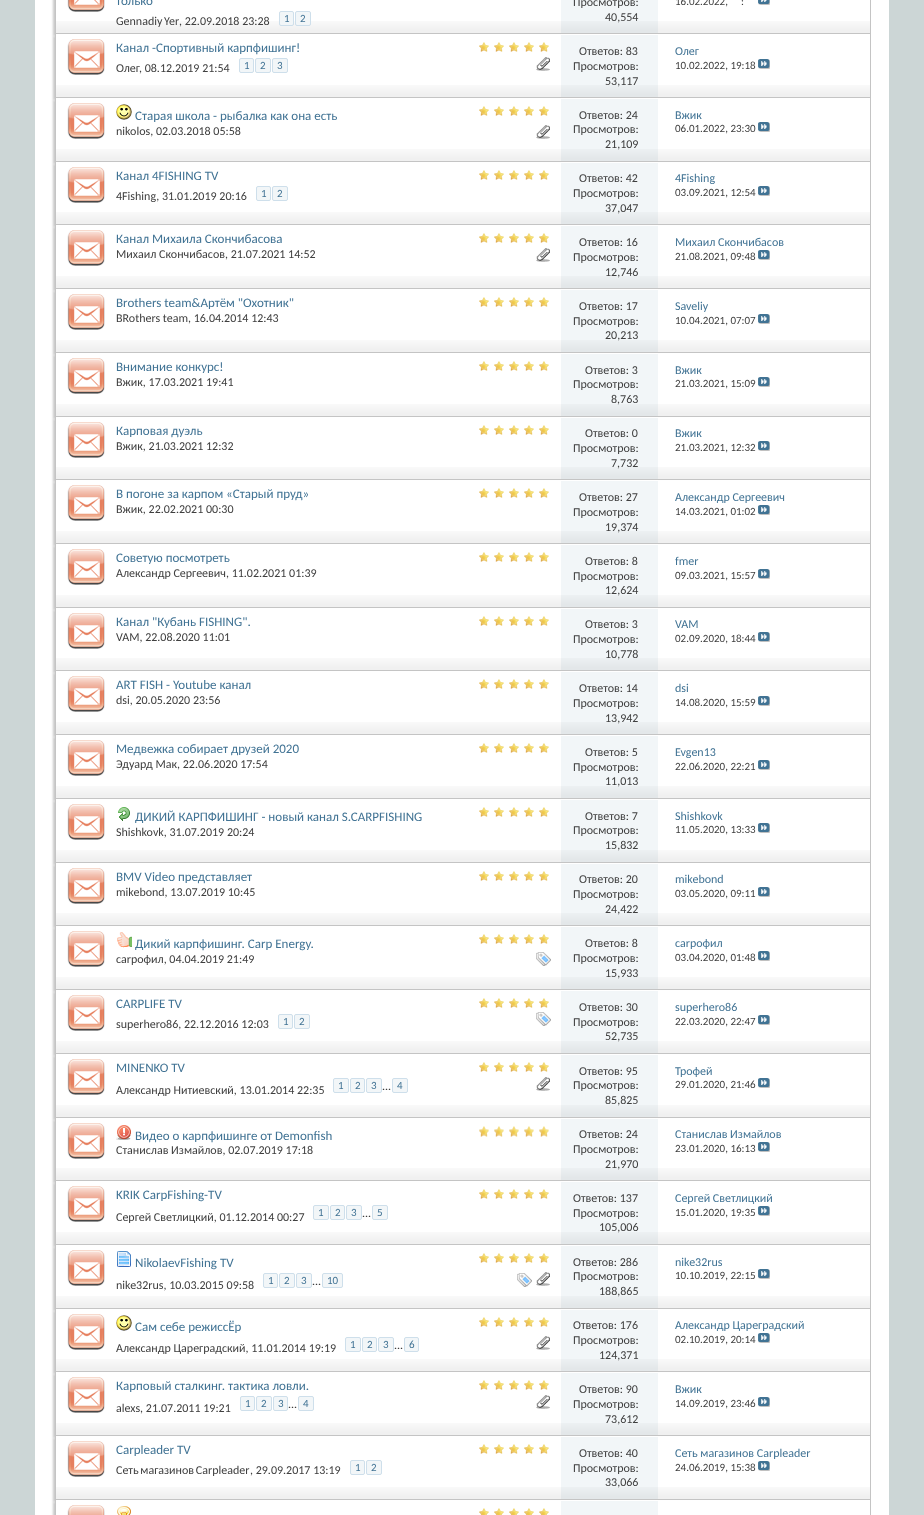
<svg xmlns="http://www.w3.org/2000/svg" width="924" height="1515">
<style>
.a{font:13px Carlito;fill:#417394}
.b{font:12px Carlito;fill:#3e3e3e}
.c{font:11px Carlito;fill:#417394}
.d{font:11px Carlito;fill:#3e3e3e}
.e{font:12px Carlito;fill:#417394}
</style>
<defs>
<clipPath id="clip1"><path d="M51 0h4v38H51z"/></clipPath>
</defs>
<rect width="100%" height="100%" fill="#ccd6d6"/>
<path fill="#fff" d="M35 0h854v1515H35z"/>
<g clip-path="url(#clip1)">
<path fill="#c8c8c8" filter="blur(1px)" d="M53 -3h814v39H53z"/>
</g>
<image href="1.png" x="56" y="21" width="814" height="12"/>
<path fill="#c4c4c4" d="M870 0h1v34H870z"/>
<path fill="#c4c4c4" d="M55 33h816v1H55z"/>
<path fill="#c4c4c4" d="M55 0h1v34H55z"/>
<image href="2.png" x="67" y="0" width="38" height="12"/>
<rect fill="#f2f6f8" stroke="#cedfeb" x="279.5" y="11.5" width="14" height="14" rx="1.5"/>
<rect fill="#f2f6f8" stroke="#cedfeb" x="295.5" y="11.5" width="15" height="14" rx="1.5"/>
<path fill="#f2f6f8" d="M561 0h97v33H561z"/>
<image href="3.png" x="561" y="21" width="97" height="12"/>
<image href="4.png" x="758" y="0" width="12" height="5"/>
<path fill="#c8c8c8" filter="blur(1px)" d="M53 36h814v64H53z"/>
<path fill="#fff" d="M56 34h813v63H56z"/>
<image href="1.png" x="56" y="85" width="814" height="12"/>
<path fill="#c4c4c4" d="M870 34h1v64H870z"/>
<path fill="#c4c4c4" d="M55 97h816v1H55z"/>
<path fill="#c4c4c4" d="M55 34h1v64H55z"/>
<image href="5.png" x="67" y="39" width="38" height="36"/>
<image href="6.png" x="479" y="42" width="70" height="10"/>
<rect fill="#f2f6f8" stroke="#cedfeb" x="239.5" y="58.5" width="14" height="14" rx="1.5"/>
<rect fill="#f2f6f8" stroke="#cedfeb" x="255.5" y="58.5" width="15" height="14" rx="1.5"/>
<rect fill="#f2f6f8" stroke="#cedfeb" x="272.5" y="58.5" width="15" height="14" rx="1.5"/>
<image href="7.png" x="536" y="57" width="14" height="14"/>
<path fill="#f2f6f8" d="M561 35h97v62H561z"/>
<image href="3.png" x="561" y="85" width="97" height="12"/>
<image href="8.png" x="758" y="59" width="12" height="10"/>
<path fill="#c8c8c8" filter="blur(1px)" d="M53 100h814v64H53z"/>
<path fill="#fff" d="M56 98h813v63H56z"/>
<image href="1.png" x="56" y="149" width="814" height="12"/>
<path fill="#c4c4c4" d="M870 98h1v64H870z"/>
<path fill="#c4c4c4" d="M55 161h816v1H55z"/>
<path fill="#c4c4c4" d="M55 98h1v64H55z"/>
<image href="5.png" x="67" y="103" width="38" height="36"/>
<image href="6.png" x="479" y="106" width="70" height="10"/>
<image href="9.png" x="116" y="104" width="16" height="16"/>
<image href="7.png" x="536" y="125" width="14" height="14"/>
<path fill="#f2f6f8" d="M561 99h97v62H561z"/>
<image href="3.png" x="561" y="149" width="97" height="12"/>
<image href="8.png" x="758" y="122" width="12" height="10"/>
<path fill="#c8c8c8" filter="blur(1px)" d="M53 164h814v63H53z"/>
<path fill="#fff" d="M56 162h813v62H56z"/>
<image href="1.png" x="56" y="212" width="814" height="12"/>
<path fill="#c4c4c4" d="M870 162h1v63H870z"/>
<path fill="#c4c4c4" d="M55 224h816v1H55z"/>
<path fill="#c4c4c4" d="M55 162h1v63H55z"/>
<image href="5.png" x="67" y="167" width="38" height="36"/>
<image href="6.png" x="479" y="170" width="70" height="10"/>
<rect fill="#f2f6f8" stroke="#cedfeb" x="256.5" y="186.5" width="14" height="14" rx="1.5"/>
<rect fill="#f2f6f8" stroke="#cedfeb" x="272.5" y="186.5" width="15" height="14" rx="1.5"/>
<path fill="#f2f6f8" d="M561 163h97v61H561z"/>
<image href="3.png" x="561" y="212" width="97" height="12"/>
<image href="8.png" x="758" y="186" width="12" height="10"/>
<path fill="#c8c8c8" filter="blur(1px)" d="M53 227h814v64H53z"/>
<path fill="#fff" d="M56 225h813v63H56z"/>
<image href="1.png" x="56" y="276" width="814" height="12"/>
<path fill="#c4c4c4" d="M870 225h1v64H870z"/>
<path fill="#c4c4c4" d="M55 288h816v1H55z"/>
<path fill="#c4c4c4" d="M55 225h1v64H55z"/>
<image href="5.png" x="67" y="230" width="38" height="36"/>
<image href="6.png" x="479" y="233" width="70" height="10"/>
<image href="7.png" x="536" y="248" width="14" height="14"/>
<path fill="#f2f6f8" d="M561 226h97v62H561z"/>
<image href="3.png" x="561" y="276" width="97" height="12"/>
<image href="8.png" x="758" y="250" width="12" height="10"/>
<path fill="#c8c8c8" filter="blur(1px)" d="M53 291h814v64H53z"/>
<path fill="#fff" d="M56 289h813v63H56z"/>
<image href="1.png" x="56" y="340" width="814" height="12"/>
<path fill="#c4c4c4" d="M870 289h1v64H870z"/>
<path fill="#c4c4c4" d="M55 352h816v1H55z"/>
<path fill="#c4c4c4" d="M55 289h1v64H55z"/>
<image href="5.png" x="67" y="294" width="38" height="36"/>
<image href="6.png" x="479" y="297" width="70" height="10"/>
<path fill="#f2f6f8" d="M561 290h97v62H561z"/>
<image href="3.png" x="561" y="340" width="97" height="12"/>
<image href="8.png" x="758" y="314" width="12" height="10"/>
<path fill="#c8c8c8" filter="blur(1px)" d="M53 355h814v64H53z"/>
<path fill="#fff" d="M56 353h813v63H56z"/>
<image href="1.png" x="56" y="404" width="814" height="12"/>
<path fill="#c4c4c4" d="M870 353h1v64H870z"/>
<path fill="#c4c4c4" d="M55 416h816v1H55z"/>
<path fill="#c4c4c4" d="M55 353h1v64H55z"/>
<image href="5.png" x="67" y="358" width="38" height="36"/>
<image href="6.png" x="479" y="361" width="70" height="10"/>
<path fill="#f2f6f8" d="M561 354h97v62H561z"/>
<image href="3.png" x="561" y="404" width="97" height="12"/>
<image href="8.png" x="758" y="377" width="12" height="10"/>
<path fill="#c8c8c8" filter="blur(1px)" d="M53 419h814v63H53z"/>
<path fill="#fff" d="M56 417h813v62H56z"/>
<image href="1.png" x="56" y="467" width="814" height="12"/>
<path fill="#c4c4c4" d="M870 417h1v63H870z"/>
<path fill="#c4c4c4" d="M55 479h816v1H55z"/>
<path fill="#c4c4c4" d="M55 417h1v63H55z"/>
<image href="5.png" x="67" y="422" width="38" height="36"/>
<image href="6.png" x="479" y="425" width="70" height="10"/>
<path fill="#f2f6f8" d="M561 418h97v61H561z"/>
<image href="3.png" x="561" y="467" width="97" height="12"/>
<image href="8.png" x="758" y="441" width="12" height="10"/>
<path fill="#c8c8c8" filter="blur(1px)" d="M53 482h814v64H53z"/>
<path fill="#fff" d="M56 480h813v63H56z"/>
<image href="1.png" x="56" y="531" width="814" height="12"/>
<path fill="#c4c4c4" d="M870 480h1v64H870z"/>
<path fill="#c4c4c4" d="M55 543h816v1H55z"/>
<path fill="#c4c4c4" d="M55 480h1v64H55z"/>
<image href="5.png" x="67" y="485" width="38" height="36"/>
<image href="6.png" x="479" y="488" width="70" height="10"/>
<path fill="#f2f6f8" d="M561 481h97v62H561z"/>
<image href="3.png" x="561" y="531" width="97" height="12"/>
<image href="8.png" x="758" y="505" width="12" height="10"/>
<path fill="#c8c8c8" filter="blur(1px)" d="M53 546h814v64H53z"/>
<path fill="#fff" d="M56 544h813v63H56z"/>
<image href="1.png" x="56" y="595" width="814" height="12"/>
<path fill="#c4c4c4" d="M870 544h1v64H870z"/>
<path fill="#c4c4c4" d="M55 607h816v1H55z"/>
<path fill="#c4c4c4" d="M55 544h1v64H55z"/>
<image href="5.png" x="67" y="549" width="38" height="36"/>
<image href="6.png" x="479" y="552" width="70" height="10"/>
<path fill="#f2f6f8" d="M561 545h97v62H561z"/>
<image href="3.png" x="561" y="595" width="97" height="12"/>
<image href="8.png" x="758" y="569" width="12" height="10"/>
<path fill="#c8c8c8" filter="blur(1px)" d="M53 610h814v63H53z"/>
<path fill="#fff" d="M56 608h813v62H56z"/>
<image href="1.png" x="56" y="658" width="814" height="12"/>
<path fill="#c4c4c4" d="M870 608h1v63H870z"/>
<path fill="#c4c4c4" d="M55 670h816v1H55z"/>
<path fill="#c4c4c4" d="M55 608h1v63H55z"/>
<image href="5.png" x="67" y="613" width="38" height="36"/>
<image href="6.png" x="479" y="616" width="70" height="10"/>
<path fill="#f2f6f8" d="M561 609h97v61H561z"/>
<image href="3.png" x="561" y="658" width="97" height="12"/>
<image href="8.png" x="758" y="632" width="12" height="10"/>
<path fill="#c8c8c8" filter="blur(1px)" d="M53 673h814v64H53z"/>
<path fill="#fff" d="M56 671h813v63H56z"/>
<image href="1.png" x="56" y="722" width="814" height="12"/>
<path fill="#c4c4c4" d="M870 671h1v64H870z"/>
<path fill="#c4c4c4" d="M55 734h816v1H55z"/>
<path fill="#c4c4c4" d="M55 671h1v64H55z"/>
<image href="5.png" x="67" y="676" width="38" height="36"/>
<image href="6.png" x="479" y="679" width="70" height="10"/>
<path fill="#f2f6f8" d="M561 672h97v62H561z"/>
<image href="3.png" x="561" y="722" width="97" height="12"/>
<image href="8.png" x="758" y="696" width="12" height="10"/>
<path fill="#c8c8c8" filter="blur(1px)" d="M53 737h814v64H53z"/>
<path fill="#fff" d="M56 735h813v63H56z"/>
<image href="1.png" x="56" y="786" width="814" height="12"/>
<path fill="#c4c4c4" d="M870 735h1v64H870z"/>
<path fill="#c4c4c4" d="M55 798h816v1H55z"/>
<path fill="#c4c4c4" d="M55 735h1v64H55z"/>
<image href="5.png" x="67" y="740" width="38" height="36"/>
<image href="6.png" x="479" y="743" width="70" height="10"/>
<path fill="#f2f6f8" d="M561 736h97v62H561z"/>
<image href="3.png" x="561" y="786" width="97" height="12"/>
<image href="8.png" x="758" y="760" width="12" height="10"/>
<path fill="#c8c8c8" filter="blur(1px)" d="M53 801h814v64H53z"/>
<path fill="#fff" d="M56 799h813v63H56z"/>
<image href="1.png" x="56" y="850" width="814" height="12"/>
<path fill="#c4c4c4" d="M870 799h1v64H870z"/>
<path fill="#c4c4c4" d="M55 862h816v1H55z"/>
<path fill="#c4c4c4" d="M55 799h1v64H55z"/>
<image href="5.png" x="67" y="804" width="38" height="36"/>
<image href="6.png" x="479" y="807" width="70" height="10"/>
<image href="10.png" x="118" y="807" width="12" height="14"/>
<path fill="#f2f6f8" d="M561 800h97v62H561z"/>
<image href="3.png" x="561" y="850" width="97" height="12"/>
<image href="8.png" x="758" y="823" width="12" height="10"/>
<path fill="#c8c8c8" filter="blur(1px)" d="M53 865h814v63H53z"/>
<path fill="#fff" d="M56 863h813v62H56z"/>
<image href="1.png" x="56" y="913" width="814" height="12"/>
<path fill="#c4c4c4" d="M870 863h1v63H870z"/>
<path fill="#c4c4c4" d="M55 925h816v1H55z"/>
<path fill="#c4c4c4" d="M55 863h1v63H55z"/>
<image href="5.png" x="67" y="868" width="38" height="36"/>
<image href="6.png" x="479" y="871" width="70" height="10"/>
<path fill="#f2f6f8" d="M561 864h97v61H561z"/>
<image href="3.png" x="561" y="913" width="97" height="12"/>
<image href="8.png" x="758" y="887" width="12" height="10"/>
<path fill="#c8c8c8" filter="blur(1px)" d="M53 928h814v64H53z"/>
<path fill="#fff" d="M56 926h813v63H56z"/>
<image href="1.png" x="56" y="977" width="814" height="12"/>
<path fill="#c4c4c4" d="M870 926h1v64H870z"/>
<path fill="#c4c4c4" d="M55 989h816v1H55z"/>
<path fill="#c4c4c4" d="M55 926h1v64H55z"/>
<image href="5.png" x="67" y="931" width="38" height="36"/>
<image href="6.png" x="479" y="934" width="70" height="10"/>
<image href="11.png" x="117" y="932" width="15" height="16"/>
<image href="12.png" x="536" y="952" width="15" height="14"/>
<path fill="#f2f6f8" d="M561 927h97v62H561z"/>
<image href="3.png" x="561" y="977" width="97" height="12"/>
<image href="8.png" x="758" y="951" width="12" height="10"/>
<path fill="#c8c8c8" filter="blur(1px)" d="M53 992h814v64H53z"/>
<path fill="#fff" d="M56 990h813v63H56z"/>
<image href="1.png" x="56" y="1041" width="814" height="12"/>
<path fill="#c4c4c4" d="M870 990h1v64H870z"/>
<path fill="#c4c4c4" d="M55 1053h816v1H55z"/>
<path fill="#c4c4c4" d="M55 990h1v64H55z"/>
<image href="5.png" x="67" y="995" width="38" height="36"/>
<image href="6.png" x="479" y="998" width="70" height="10"/>
<rect fill="#f2f6f8" stroke="#cedfeb" x="278.5" y="1014.5" width="14" height="14" rx="1.5"/>
<rect fill="#f2f6f8" stroke="#cedfeb" x="294.5" y="1014.5" width="15" height="14" rx="1.5"/>
<image href="12.png" x="536" y="1012" width="15" height="14"/>
<path fill="#f2f6f8" d="M561 991h97v62H561z"/>
<image href="3.png" x="561" y="1041" width="97" height="12"/>
<image href="8.png" x="758" y="1015" width="12" height="10"/>
<path fill="#c8c8c8" filter="blur(1px)" d="M53 1056h814v64H53z"/>
<path fill="#fff" d="M56 1054h813v63H56z"/>
<image href="1.png" x="56" y="1105" width="814" height="12"/>
<path fill="#c4c4c4" d="M870 1054h1v64H870z"/>
<path fill="#c4c4c4" d="M55 1117h816v1H55z"/>
<path fill="#c4c4c4" d="M55 1054h1v64H55z"/>
<image href="5.png" x="67" y="1059" width="38" height="36"/>
<image href="6.png" x="479" y="1062" width="70" height="10"/>
<rect fill="#f2f6f8" stroke="#cedfeb" x="333.5" y="1078.5" width="15" height="14" rx="1.5"/>
<rect fill="#f2f6f8" stroke="#cedfeb" x="350.5" y="1078.5" width="14" height="14" rx="1.5"/>
<rect fill="#f2f6f8" stroke="#cedfeb" x="366.5" y="1078.5" width="15" height="14" rx="1.5"/>
<rect fill="#f2f6f8" stroke="#cedfeb" x="392.5" y="1078.5" width="15" height="14" rx="1.5"/>
<image href="7.png" x="536" y="1077" width="14" height="14"/>
<path fill="#f2f6f8" d="M561 1055h97v62H561z"/>
<image href="3.png" x="561" y="1105" width="97" height="12"/>
<image href="8.png" x="758" y="1078" width="12" height="10"/>
<path fill="#c8c8c8" filter="blur(1px)" d="M53 1120h814v63H53z"/>
<path fill="#fff" d="M56 1118h813v62H56z"/>
<image href="1.png" x="56" y="1168" width="814" height="12"/>
<path fill="#c4c4c4" d="M870 1118h1v63H870z"/>
<path fill="#c4c4c4" d="M55 1180h816v1H55z"/>
<path fill="#c4c4c4" d="M55 1118h1v63H55z"/>
<image href="5.png" x="67" y="1123" width="38" height="36"/>
<image href="13.png" x="479" y="1126" width="70" height="11"/>
<image href="14.png" x="116" y="1125" width="15" height="15"/>
<path fill="#f2f6f8" d="M561 1119h97v61H561z"/>
<image href="3.png" x="561" y="1168" width="97" height="12"/>
<image href="8.png" x="758" y="1142" width="12" height="10"/>
<path fill="#c8c8c8" filter="blur(1px)" d="M53 1183h814v64H53z"/>
<path fill="#fff" d="M56 1181h813v63H56z"/>
<image href="1.png" x="56" y="1232" width="814" height="12"/>
<path fill="#c4c4c4" d="M870 1181h1v64H870z"/>
<path fill="#c4c4c4" d="M55 1244h816v1H55z"/>
<path fill="#c4c4c4" d="M55 1181h1v64H55z"/>
<image href="5.png" x="67" y="1186" width="38" height="36"/>
<image href="6.png" x="479" y="1189" width="70" height="10"/>
<rect fill="#f2f6f8" stroke="#cedfeb" x="313.5" y="1205.5" width="15" height="14" rx="1.5"/>
<rect fill="#f2f6f8" stroke="#cedfeb" x="330.5" y="1205.5" width="14" height="14" rx="1.5"/>
<rect fill="#f2f6f8" stroke="#cedfeb" x="346.5" y="1205.5" width="15" height="14" rx="1.5"/>
<rect fill="#f2f6f8" stroke="#cedfeb" x="372.5" y="1205.5" width="15" height="14" rx="1.5"/>
<path fill="#f2f6f8" d="M561 1182h97v62H561z"/>
<image href="3.png" x="561" y="1232" width="97" height="12"/>
<image href="8.png" x="758" y="1206" width="12" height="10"/>
<path fill="#c8c8c8" filter="blur(1px)" d="M53 1247h814v64H53z"/>
<path fill="#fff" d="M56 1245h813v63H56z"/>
<image href="1.png" x="56" y="1296" width="814" height="12"/>
<path fill="#c4c4c4" d="M870 1245h1v64H870z"/>
<path fill="#c4c4c4" d="M55 1308h816v1H55z"/>
<path fill="#c4c4c4" d="M55 1245h1v64H55z"/>
<image href="5.png" x="67" y="1250" width="38" height="36"/>
<image href="6.png" x="479" y="1253" width="70" height="10"/>
<image href="15.png" x="117" y="1251" width="14" height="16"/>
<rect fill="#f2f6f8" stroke="#cedfeb" x="263.5" y="1273.5" width="14" height="14" rx="1.5"/>
<rect fill="#f2f6f8" stroke="#cedfeb" x="279.5" y="1273.5" width="15" height="14" rx="1.5"/>
<rect fill="#f2f6f8" stroke="#cedfeb" x="296.5" y="1273.5" width="15" height="14" rx="1.5"/>
<rect fill="#f2f6f8" stroke="#cedfeb" x="322.5" y="1273.5" width="20" height="14" rx="1.5"/>
<image href="12.png" x="517" y="1273" width="15" height="14"/>
<image href="7.png" x="536" y="1272" width="14" height="14"/>
<path fill="#f2f6f8" d="M561 1246h97v62H561z"/>
<image href="3.png" x="561" y="1296" width="97" height="12"/>
<image href="8.png" x="758" y="1269" width="12" height="10"/>
<path fill="#c8c8c8" filter="blur(1px)" d="M53 1311h814v63H53z"/>
<path fill="#fff" d="M56 1309h813v62H56z"/>
<image href="1.png" x="56" y="1359" width="814" height="12"/>
<path fill="#c4c4c4" d="M870 1309h1v63H870z"/>
<path fill="#c4c4c4" d="M55 1371h816v1H55z"/>
<path fill="#c4c4c4" d="M55 1309h1v63H55z"/>
<image href="5.png" x="67" y="1314" width="38" height="36"/>
<image href="6.png" x="479" y="1317" width="70" height="10"/>
<image href="9.png" x="116" y="1315" width="16" height="16"/>
<rect fill="#f2f6f8" stroke="#cedfeb" x="345.5" y="1337.5" width="15" height="14" rx="1.5"/>
<rect fill="#f2f6f8" stroke="#cedfeb" x="362.5" y="1337.5" width="14" height="14" rx="1.5"/>
<rect fill="#f2f6f8" stroke="#cedfeb" x="378.5" y="1337.5" width="15" height="14" rx="1.5"/>
<rect fill="#f2f6f8" stroke="#cedfeb" x="404.5" y="1337.5" width="14" height="14" rx="1.5"/>
<image href="7.png" x="536" y="1336" width="14" height="14"/>
<path fill="#f2f6f8" d="M561 1310h97v61H561z"/>
<image href="3.png" x="561" y="1359" width="97" height="12"/>
<image href="8.png" x="758" y="1333" width="12" height="10"/>
<path fill="#c8c8c8" filter="blur(1px)" d="M53 1374h814v64H53z"/>
<path fill="#fff" d="M56 1372h813v63H56z"/>
<image href="1.png" x="56" y="1423" width="814" height="12"/>
<path fill="#c4c4c4" d="M870 1372h1v64H870z"/>
<path fill="#c4c4c4" d="M55 1435h816v1H55z"/>
<path fill="#c4c4c4" d="M55 1372h1v64H55z"/>
<image href="5.png" x="67" y="1377" width="38" height="36"/>
<image href="6.png" x="479" y="1380" width="70" height="10"/>
<rect fill="#f2f6f8" stroke="#cedfeb" x="240.5" y="1396.5" width="14" height="14" rx="1.5"/>
<rect fill="#f2f6f8" stroke="#cedfeb" x="256.5" y="1396.5" width="15" height="14" rx="1.5"/>
<rect fill="#f2f6f8" stroke="#cedfeb" x="273.5" y="1396.5" width="14" height="14" rx="1.5"/>
<rect fill="#f2f6f8" stroke="#cedfeb" x="298.5" y="1396.5" width="15" height="14" rx="1.5"/>
<image href="7.png" x="536" y="1395" width="14" height="14"/>
<path fill="#f2f6f8" d="M561 1373h97v62H561z"/>
<image href="3.png" x="561" y="1423" width="97" height="12"/>
<image href="8.png" x="758" y="1397" width="12" height="10"/>
<path fill="#c8c8c8" filter="blur(1px)" d="M53 1438h814v64H53z"/>
<path fill="#fff" d="M56 1436h813v63H56z"/>
<image href="1.png" x="56" y="1487" width="814" height="12"/>
<path fill="#c4c4c4" d="M870 1436h1v64H870z"/>
<path fill="#c4c4c4" d="M55 1499h816v1H55z"/>
<path fill="#c4c4c4" d="M55 1436h1v64H55z"/>
<image href="5.png" x="67" y="1441" width="38" height="36"/>
<image href="6.png" x="479" y="1444" width="70" height="10"/>
<rect fill="#f2f6f8" stroke="#cedfeb" x="350.5" y="1460.5" width="14" height="14" rx="1.5"/>
<rect fill="#f2f6f8" stroke="#cedfeb" x="366.5" y="1460.5" width="15" height="14" rx="1.5"/>
<path fill="#f2f6f8" d="M561 1437h97v62H561z"/>
<image href="3.png" x="561" y="1487" width="97" height="12"/>
<image href="8.png" x="758" y="1461" width="12" height="10"/>
<path fill="#c8c8c8" filter="blur(1px)" d="M53 1502h814v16H53z"/>
<path fill="#fff" d="M56 1500h813v15H56z"/>
<path fill="#c4c4c4" d="M870 1500h1v15H870z"/>
<path fill="#c4c4c4" d="M55 1500h1v15H55z"/>
<image href="16.png" x="67" y="1505" width="38" height="10"/>
<image href="17.png" x="479" y="1508" width="70" height="7"/>
<image href="18.png" x="117" y="1506" width="14" height="9"/>
<path fill="#f2f6f8" d="M561 1501h97v14H561z"/>
<text class="a" x="116" y="5">только</text>
<text class="b" x="116" y="25" word-spacing="-1">Gennadiy Yer</text>
<text class="b" x="179" y="25">, 22.09.2018 23:28</text>
<text class="c" x="284" y="22">1</text>
<text class="c" x="300" y="22">2</text>
<text class="b" x="573" y="6">Просмотров:</text>
<text class="b" x="605" y="21">40,554</text>
<text class="d" x="675" y="5">16.02.2022,</text>
<text class="d" x="741" y="5">:</text>
<text class="a" x="116" y="52">Канал -Спортивный карпфишинг!</text>
<text class="b" x="116" y="72">Олег</text>
<text class="b" x="139" y="72">, 08.12.2019 21:54</text>
<text class="c" x="244" y="69">1</text>
<text class="c" x="260" y="69">2</text>
<text class="c" x="277" y="69">3</text>
<text class="b" x="579" y="55">Ответов: 83</text>
<text class="b" x="573" y="70">Просмотров:</text>
<text class="b" x="605" y="85">53,117</text>
<text class="e" x="675" y="55">Олег</text>
<text class="d" x="675" y="69">10.02.2022, 19:18</text>
<text class="a" x="135" y="120">Старая школа - рыбалка как она есть</text>
<text class="b" x="116" y="135">nikolos, 02.03.2018 05:58</text>
<text class="b" x="579" y="119">Ответов: 24</text>
<text class="b" x="573" y="133">Просмотров:</text>
<text class="b" x="605" y="148">21,109</text>
<text class="e" x="675" y="119">Вжик</text>
<text class="d" x="675" y="132">06.01.2022, 23:30</text>
<text class="a" x="116" y="180">Канал 4FISHING TV</text>
<text class="b" x="116" y="200">4Fishing, 31.01.2019 20:16</text>
<text class="c" x="261" y="197">1</text>
<text class="c" x="277" y="197">2</text>
<text class="b" x="579" y="182">Ответов: 42</text>
<text class="b" x="573" y="197">Просмотров:</text>
<text class="b" x="605" y="212">37,047</text>
<text class="e" x="675" y="182">4Fishing</text>
<text class="d" x="675" y="196">03.09.2021, 12:54</text>
<text class="a" x="116" y="243">Канал Михаила Скончибасова</text>
<text class="b" x="116" y="258">Михаил Скончибасов, 21.07.2021 14:52</text>
<text class="b" x="579" y="246">Ответов: 16</text>
<text class="b" x="573" y="261">Просмотров:</text>
<text class="b" x="605" y="276">12,746</text>
<text class="e" x="675" y="246">Михаил Скончибасов</text>
<text class="d" x="675" y="260">21.08.2021, 09:48</text>
<text class="a" x="116" y="307">Brothers team&amp;Артём "Охотник"</text>
<text class="b" x="116" y="322">BRothers team, 16.04.2014 12:43</text>
<text class="b" x="579" y="310">Ответов: 17</text>
<text class="b" x="573" y="325">Просмотров:</text>
<text class="b" x="605" y="339">20,213</text>
<text class="e" x="675" y="310">Saveliy</text>
<text class="d" x="675" y="324">10.04.2021, 07:07</text>
<text class="a" x="116" y="371">Внимание конкурс!</text>
<text class="b" x="116" y="386">Вжик, 17.03.2021 19:41</text>
<text class="b" x="585" y="374">Ответов: 3</text>
<text class="b" x="573" y="388">Просмотров:</text>
<text class="b" x="611" y="403">8,763</text>
<text class="e" x="675" y="374">Вжик</text>
<text class="d" x="675" y="387">21.03.2021, 15:09</text>
<text class="a" x="116" y="435">Карповая дуэль</text>
<text class="b" x="116" y="450">Вжик, 21.03.2021 12:32</text>
<text class="b" x="585" y="437">Ответов: 0</text>
<text class="b" x="573" y="452">Просмотров:</text>
<text class="b" x="611" y="467">7,732</text>
<text class="e" x="675" y="437">Вжик</text>
<text class="d" x="675" y="451">21.03.2021, 12:32</text>
<text class="a" x="116" y="498">В погоне за карпом «Старый пруд»</text>
<text class="b" x="116" y="513">Вжик, 22.02.2021 00:30</text>
<text class="b" x="579" y="501">Ответов: 27</text>
<text class="b" x="573" y="516">Просмотров:</text>
<text class="b" x="605" y="531">19,374</text>
<text class="e" x="675" y="501">Александр Сергеевич</text>
<text class="d" x="675" y="515">14.03.2021, 01:02</text>
<text class="a" x="116" y="562">Советую посмотреть</text>
<text class="b" x="116" y="577">Александр Сергеевич, 11.02.2021 01:39</text>
<text class="b" x="585" y="565">Ответов: 8</text>
<text class="b" x="573" y="580">Просмотров:</text>
<text class="b" x="605" y="594">12,624</text>
<text class="e" x="675" y="565">fmer</text>
<text class="d" x="675" y="579">09.03.2021, 15:57</text>
<text class="a" x="116" y="626">Канал "Кубань FISHING".</text>
<text class="b" x="116" y="641">VAM, 22.08.2020 11:01</text>
<text class="b" x="585" y="628">Ответов: 3</text>
<text class="b" x="573" y="643">Просмотров:</text>
<text class="b" x="605" y="658">10,778</text>
<text class="e" x="675" y="628">VAM</text>
<text class="d" x="675" y="642">02.09.2020, 18:44</text>
<text class="a" x="116" y="689">ART FISH - Youtube канал</text>
<text class="b" x="116" y="704">dsi, 20.05.2020 23:56</text>
<text class="b" x="579" y="692">Ответов: 14</text>
<text class="b" x="573" y="707">Просмотров:</text>
<text class="b" x="605" y="722">13,942</text>
<text class="e" x="675" y="692">dsi</text>
<text class="d" x="675" y="706">14.08.2020, 15:59</text>
<text class="a" x="116" y="753">Медвежка собирает друзей 2020</text>
<text class="b" x="116" y="768">Эдуард Мак, 22.06.2020 17:54</text>
<text class="b" x="585" y="756">Ответов: 5</text>
<text class="b" x="573" y="771">Просмотров:</text>
<text class="b" x="605" y="785">11,013</text>
<text class="e" x="675" y="756">Evgen13</text>
<text class="d" x="675" y="770">22.06.2020, 22:21</text>
<text class="a" x="135" y="821">ДИКИЙ КАРПФИШИНГ - новый канал S.CARPFISHING</text>
<text class="b" x="116" y="836">Shishkovk, 31.07.2019 20:24</text>
<text class="b" x="585" y="820">Ответов: 7</text>
<text class="b" x="573" y="834">Просмотров:</text>
<text class="b" x="605" y="849">15,832</text>
<text class="e" x="675" y="820">Shishkovk</text>
<text class="d" x="675" y="833">11.05.2020, 13:33</text>
<text class="a" x="116" y="881">BMV Video представляет</text>
<text class="b" x="116" y="896">mikebond, 13.07.2019 10:45</text>
<text class="b" x="579" y="883">Ответов: 20</text>
<text class="b" x="573" y="898">Просмотров:</text>
<text class="b" x="605" y="913">24,422</text>
<text class="e" x="675" y="883">mikebond</text>
<text class="d" x="675" y="897">03.05.2020, 09:11</text>
<text class="a" x="135" y="948">Дикий карпфишинг. Carp Energy.</text>
<text class="b" x="116" y="963">carpoфил, 04.04.2019 21:49</text>
<text class="b" x="585" y="947">Ответов: 8</text>
<text class="b" x="573" y="962">Просмотров:</text>
<text class="b" x="605" y="977">15,933</text>
<text class="e" x="675" y="947">carpoфил</text>
<text class="d" x="675" y="961">03.04.2020, 01:48</text>
<text class="a" x="116" y="1008">CARPLIFE TV</text>
<text class="b" x="116" y="1028">superhero86, 22.12.2016 12:03</text>
<text class="c" x="283" y="1025">1</text>
<text class="c" x="299" y="1025">2</text>
<text class="b" x="579" y="1011">Ответов: 30</text>
<text class="b" x="573" y="1026">Просмотров:</text>
<text class="b" x="605" y="1040">52,735</text>
<text class="e" x="675" y="1011">superhero86</text>
<text class="d" x="675" y="1025">22.03.2020, 22:47</text>
<text class="a" x="116" y="1072">MINENKO TV</text>
<text class="b" x="116" y="1094">Александр Нитиевский, 13.01.2014 22:35</text>
<text class="c" x="338" y="1089">1</text>
<text class="c" x="355" y="1089">2</text>
<text class="c" x="371" y="1089">3</text>
<text class="c" x="397" y="1089">4</text>
<text class="b" x="382" y="1090">...</text>
<text class="b" x="579" y="1075">Ответов: 95</text>
<text class="b" x="573" y="1089">Просмотров:</text>
<text class="b" x="605" y="1104">85,825</text>
<text class="e" x="675" y="1075">Трофей</text>
<text class="d" x="675" y="1088">29.01.2020, 21:46</text>
<text class="a" x="135" y="1140">Видео о карпфишинге от Demonfish</text>
<text class="b" x="116" y="1154">Станислав Измайлов, 02.07.2019 17:18</text>
<text class="b" x="579" y="1138">Ответов: 24</text>
<text class="b" x="573" y="1153">Просмотров:</text>
<text class="b" x="605" y="1168">21,970</text>
<text class="e" x="675" y="1138">Станислав Измайлов</text>
<text class="d" x="675" y="1152">23.01.2020, 16:13</text>
<text class="a" x="116" y="1199">KRIK CarpFishing-TV</text>
<text class="b" x="116" y="1221">Сергей Светлицкий, 01.12.2014 00:27</text>
<text class="c" x="318" y="1216">1</text>
<text class="c" x="335" y="1216">2</text>
<text class="c" x="351" y="1216">3</text>
<text class="b" x="362" y="1217">...</text>
<text class="c" x="377" y="1216">5</text>
<text class="b" x="573" y="1202">Ответов: 137</text>
<text class="b" x="573" y="1217">Просмотров:</text>
<text class="b" x="599" y="1231">105,006</text>
<text class="e" x="675" y="1202">Сергей Светлицкий</text>
<text class="d" x="675" y="1216">15.01.2020, 19:35</text>
<text class="a" x="135" y="1267">NikolaevFishing TV</text>
<text class="b" x="116" y="1289">nike32rus, 10.03.2015 09:58</text>
<text class="c" x="268" y="1284">1</text>
<text class="c" x="284" y="1284">2</text>
<text class="c" x="301" y="1284">3</text>
<text class="b" x="312" y="1285">...</text>
<text class="c" x="327" y="1284">10</text>
<text class="b" x="573" y="1266">Ответов: 286</text>
<text class="b" x="573" y="1280">Просмотров:</text>
<text class="b" x="599" y="1295">188,865</text>
<text class="e" x="675" y="1266">nike32rus</text>
<text class="d" x="675" y="1279">10.10.2019, 22:15</text>
<text class="a" x="135" y="1331">Сам себе режиссЁр</text>
<text class="b" x="116" y="1352">Александр Цареградский, 11.01.2014 19:19</text>
<text class="c" x="350" y="1348">1</text>
<text class="c" x="367" y="1348">2</text>
<text class="c" x="383" y="1348">3</text>
<text class="b" x="394" y="1349">...</text>
<text class="c" x="409" y="1348">6</text>
<text class="b" x="573" y="1329">Ответов: 176</text>
<text class="b" x="573" y="1344">Просмотров:</text>
<text class="b" x="599" y="1359">124,371</text>
<text class="e" x="675" y="1329">Александр Цареградский</text>
<text class="d" x="675" y="1343">02.10.2019, 20:14</text>
<text class="a" x="116" y="1390">Карповый сталкинг. тактика ловли.</text>
<text class="b" x="116" y="1412">alexs, 21.07.2011 19:21</text>
<text class="c" x="245" y="1407">1</text>
<text class="c" x="261" y="1407">2</text>
<text class="c" x="278" y="1407">3</text>
<text class="c" x="303" y="1407">4</text>
<text class="b" x="288" y="1408">...</text>
<text class="b" x="579" y="1393">Ответов: 90</text>
<text class="b" x="573" y="1408">Просмотров:</text>
<text class="b" x="605" y="1423">73,612</text>
<text class="e" x="675" y="1393">Вжик</text>
<text class="d" x="675" y="1407">14.09.2019, 23:46</text>
<text class="a" x="116" y="1454">Carpleader TV</text>
<text class="b" x="116" y="1474" word-spacing="-1">Сеть магазинов Carpleader</text>
<text class="b" x="250" y="1474">, 29.09.2017 13:19</text>
<text class="c" x="355" y="1471">1</text>
<text class="c" x="371" y="1471">2</text>
<text class="b" x="579" y="1457">Ответов: 40</text>
<text class="b" x="573" y="1472">Просмотров:</text>
<text class="b" x="605" y="1486">33,066</text>
<text class="e" x="675" y="1457">Сеть магазинов Carpleader</text>
<text class="d" x="675" y="1471">24.06.2019, 15:38</text>
</svg>
